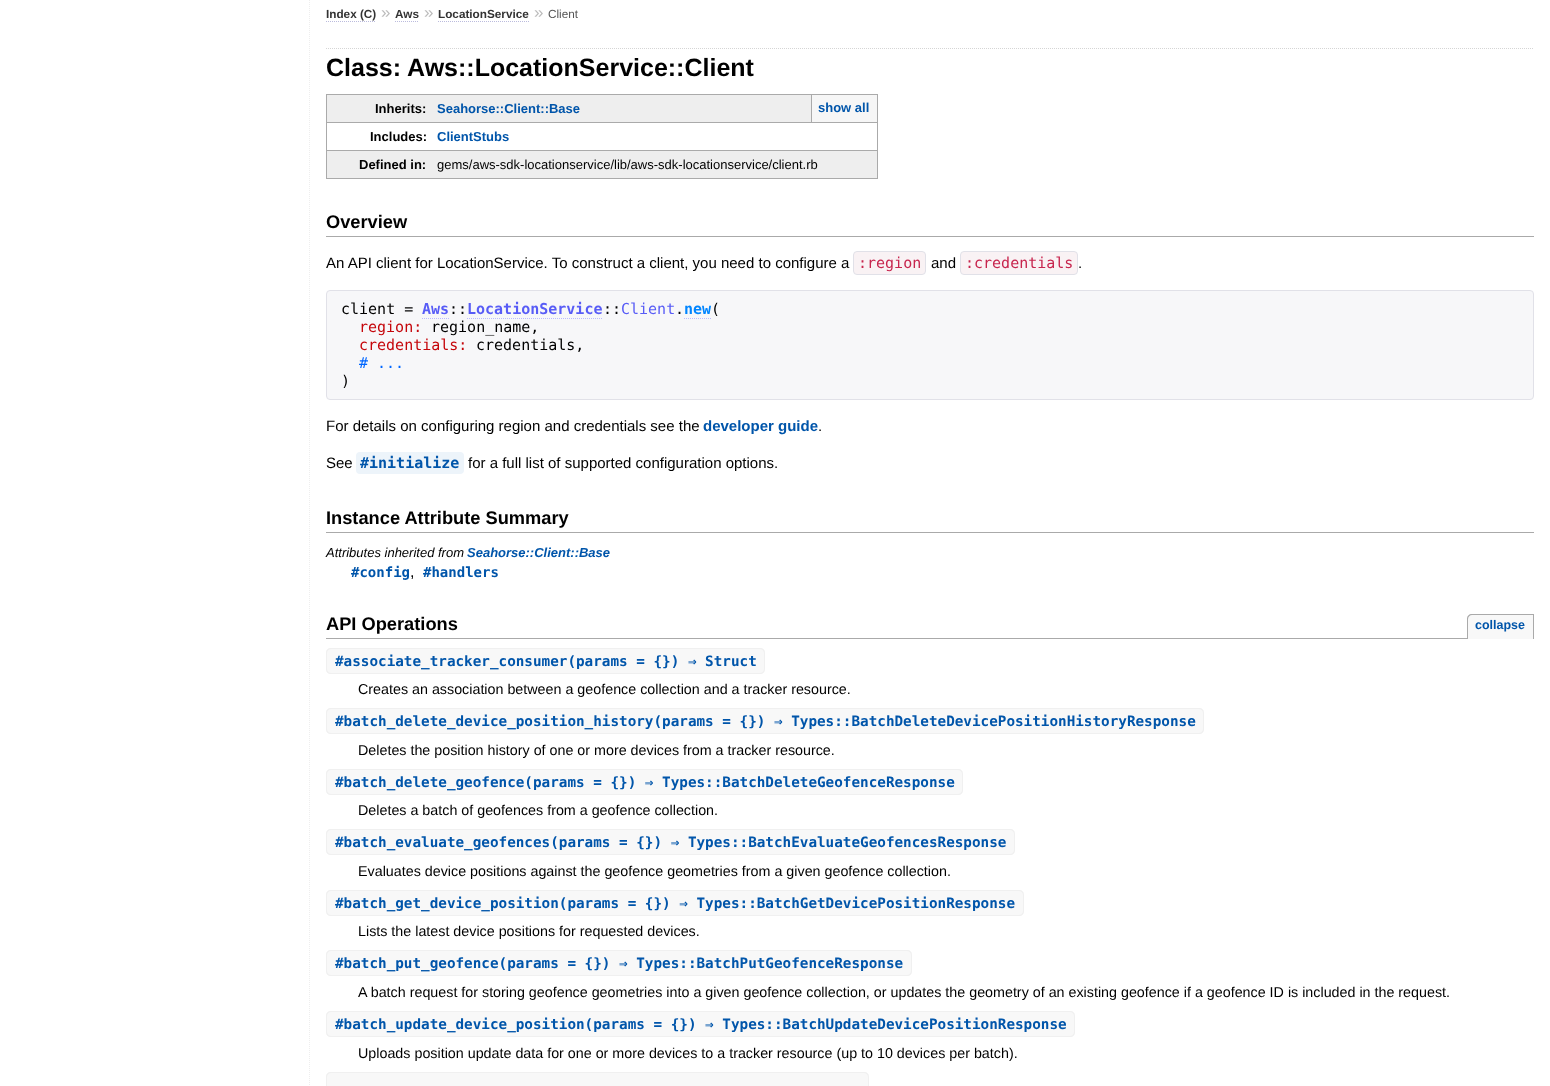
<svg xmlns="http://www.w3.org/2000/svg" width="1550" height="1086">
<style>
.a{font:bold 11.75px Liberation Sans;fill:#333}
.b{font:17px Liberation Sans;fill:#bbb}
.c{font:11.75px Liberation Sans;fill:#555}
.d{font:bold 25px Liberation Sans;fill:#000}
.e{font:bold 13px Liberation Sans;fill:#000}
.f{font:bold 13px Liberation Sans;fill:#05a}
.g{font:13px Liberation Sans;fill:#000}
.h{font:bold 18.25px Liberation Sans;fill:#000}
.i{font:15px Liberation Sans;fill:#000}
.j{font:15px DejaVu Sans Mono;fill:#c7254e}
.k{font:15px DejaVu Sans Mono;fill:#000}
.l{font:bold 15px DejaVu Sans Mono;fill:#585cf6}
.m{font:15px DejaVu Sans Mono;fill:#585cf6}
.n{font:bold 15px DejaVu Sans Mono;fill:#0085ff}
.o{font:15px DejaVu Sans Mono;fill:#c5060b}
.p{font:15px DejaVu Sans Mono;fill:#06f}
.q{font:bold 15px Liberation Sans;fill:#05a}
.r{font:bold 15px DejaVu Sans Mono;fill:#05a}
.s{font:italic 13px Liberation Sans;fill:#000}
.t{font:italic bold 13px Liberation Sans;fill:#05a}
.u{font:bold 14px DejaVu Sans Mono;fill:#05a}
.v{font:16px Liberation Sans;fill:#000}
.w{font:bold 12.5px Liberation Sans;fill:#05a}
.x{font:bold 14.3px DejaVu Sans Mono;fill:#05a}
.y{font:14.3px Liberation Sans;fill:#000}
</style>
<rect width="100%" height="100%" fill="#fff"/>
<path fill="none" stroke="#eee" stroke-dasharray="1 1" d="M309.5 0v1086"/>
<path fill="none" stroke="#bbd" stroke-dasharray="1 1" d="M326 21.5h50"/>
<path fill="none" stroke="#bbd" stroke-dasharray="1 1" d="M395 21.5h24"/>
<path fill="none" stroke="#bbd" stroke-dasharray="1 1" d="M438 21.5h91"/>
<path fill="none" stroke="#d5d5d5" stroke-dasharray="1 1" d="M326 48.5h1208"/>
<path fill="#eee" d="M327 95h484v27H327z"/>
<path fill="#aaa" d="M326 94h552v1H326z"/>
<path fill="#aaa" d="M326 94h1v28H326z"/>
<path fill="#aaa" d="M326 122h552v1H326z"/>
<path fill="#aaa" d="M326 150h552v1H326z"/>
<path fill="#aaa" d="M877 94h1v85H877z"/>
<path fill="#f6f6f6" d="M812 95h65v27H812z"/>
<path fill="#aaa" d="M811 95h1v27H811z"/>
<path fill="#aaa" d="M326 122h1v28H326z"/>
<path fill="#eee" d="M327 151h550v27H327z"/>
<path fill="#aaa" d="M326 178h111v1H326z"/>
<path fill="#aaa" d="M326 150h1v29H326z"/>
<path fill="#aaa" d="M437 178h441v1H437z"/>
<path fill="#aaa" d="M326 236h1208v1H326z"/>
<rect fill="#f9f2f4" stroke="#e1e1e8" x="853.5" y="251.5" width="72" height="23" rx="3.5"/>
<rect fill="#f9f2f4" stroke="#e1e1e8" x="960.5" y="251.5" width="117" height="23" rx="3.5"/>
<rect fill="#f7f7f9" stroke="#e1e1e8" x="326.5" y="290.5" width="1207" height="109" rx="3.5"/>
<path fill="none" stroke="#bbf" stroke-dasharray="1 1" d="M422 318.5h27"/>
<path fill="none" stroke="#bbf" stroke-dasharray="1 1" d="M684 318.5h27"/>
<path fill="none" stroke="#bbf" stroke-dasharray="1 1" d="M467 318.5h136"/>
<rect fill="#edf4fa" x="356" y="452" width="108" height="22" rx="4"/>
<path fill="#aaa" d="M326 532h1208v1H326z"/>
<path fill="#aaa" d="M326 638h1141v1H326z"/>
<path fill="#f8f8f8" d="M1472 614h62v25h-67v-20c0-3 2-5 5-5z"/>
<path fill="#aaa" fill-rule="evenodd" d="M1472 614h62v25h-67v-20c0-3 2-5 5-5zm0 1h61v24h-65v-20c0-2 2-4 4-4z"/>
<path fill="#f8f8f8" d="M331 648h12v26h-12c-3 0-5-2-5-5v-16c0-3 2-5 5-5z"/>
<path fill="#f0f0f0" fill-rule="evenodd" d="M331 648h12v26h-12c-3 0-5-2-5-5v-16c0-3 2-5 5-5zm0 1h12v24h-12c-2 0-4-2-4-4v-16c0-2 2-4 4-4z"/>
<path fill="#f8f8f8" d="M343 649h224v24H343z"/>
<path fill="#f0f0f0" d="M343 648h224v1H343z"/>
<path fill="#f0f0f0" d="M343 673h224v1H343z"/>
<path fill="#f8f8f8" d="M567 648h193c3 0 5 2 5 5v16c0 3-2 5-5 5h-193z"/>
<path fill="#f0f0f0" fill-rule="evenodd" d="M567 648h193c3 0 5 2 5 5v16c0 3-2 5-5 5h-193zm0 1h193c2 0 4 2 4 4v16c0 2-2 4-4 4h-193z"/>
<path fill="#f8f8f8" d="M331 708h12v26h-12c-3 0-5-2-5-5v-16c0-3 2-5 5-5z"/>
<path fill="#f0f0f0" fill-rule="evenodd" d="M331 708h12v26h-12c-3 0-5-2-5-5v-16c0-3 2-5 5-5zm0 1h12v24h-12c-2 0-4-2-4-4v-16c0-2 2-4 4-4z"/>
<path fill="#f8f8f8" d="M343 709h310v24H343z"/>
<path fill="#f0f0f0" d="M343 708h310v1H343z"/>
<path fill="#f0f0f0" d="M343 733h310v1H343z"/>
<path fill="#f8f8f8" d="M653 708h546c3 0 5 2 5 5v16c0 3-2 5-5 5h-546z"/>
<path fill="#f0f0f0" fill-rule="evenodd" d="M653 708h546c3 0 5 2 5 5v16c0 3-2 5-5 5h-546zm0 1h546c2 0 4 2 4 4v16c0 2-2 4-4 4h-546z"/>
<path fill="#f8f8f8" d="M331 769h12v26h-12c-3 0-5-2-5-5v-16c0-3 2-5 5-5z"/>
<path fill="#f0f0f0" fill-rule="evenodd" d="M331 769h12v26h-12c-3 0-5-2-5-5v-16c0-3 2-5 5-5zm0 1h12v24h-12c-2 0-4-2-4-4v-16c0-2 2-4 4-4z"/>
<path fill="#f8f8f8" d="M343 770h181v24H343z"/>
<path fill="#f0f0f0" d="M343 769h181v1H343z"/>
<path fill="#f0f0f0" d="M343 794h181v1H343z"/>
<path fill="#f8f8f8" d="M524 769h434c3 0 5 2 5 5v16c0 3-2 5-5 5h-434z"/>
<path fill="#f0f0f0" fill-rule="evenodd" d="M524 769h434c3 0 5 2 5 5v16c0 3-2 5-5 5h-434zm0 1h434c2 0 4 2 4 4v16c0 2-2 4-4 4h-434z"/>
<path fill="#f8f8f8" d="M331 829h12v26h-12c-3 0-5-2-5-5v-16c0-3 2-5 5-5z"/>
<path fill="#f0f0f0" fill-rule="evenodd" d="M331 829h12v26h-12c-3 0-5-2-5-5v-16c0-3 2-5 5-5zm0 1h12v24h-12c-2 0-4-2-4-4v-16c0-2 2-4 4-4z"/>
<path fill="#f8f8f8" d="M343 830h207v24H343z"/>
<path fill="#f0f0f0" d="M343 829h207v1H343z"/>
<path fill="#f0f0f0" d="M343 854h207v1H343z"/>
<path fill="#f8f8f8" d="M550 829h460c3 0 5 2 5 5v16c0 3-2 5-5 5h-460z"/>
<path fill="#f0f0f0" fill-rule="evenodd" d="M550 829h460c3 0 5 2 5 5v16c0 3-2 5-5 5h-460zm0 1h460c2 0 4 2 4 4v16c0 2-2 4-4 4h-460z"/>
<path fill="#f8f8f8" d="M331 890h12v26h-12c-3 0-5-2-5-5v-16c0-3 2-5 5-5z"/>
<path fill="#f0f0f0" fill-rule="evenodd" d="M331 890h12v26h-12c-3 0-5-2-5-5v-16c0-3 2-5 5-5zm0 1h12v24h-12c-2 0-4-2-4-4v-16c0-2 2-4 4-4z"/>
<path fill="#f8f8f8" d="M343 891h215v24H343z"/>
<path fill="#f0f0f0" d="M343 890h215v1H343z"/>
<path fill="#f0f0f0" d="M343 915h215v1H343z"/>
<path fill="#f8f8f8" d="M558 890h461c3 0 5 2 5 5v16c0 3-2 5-5 5h-461z"/>
<path fill="#f0f0f0" fill-rule="evenodd" d="M558 890h461c3 0 5 2 5 5v16c0 3-2 5-5 5h-461zm0 1h461c2 0 4 2 4 4v16c0 2-2 4-4 4h-461z"/>
<path fill="#f8f8f8" d="M331 950h12v26h-12c-3 0-5-2-5-5v-16c0-3 2-5 5-5z"/>
<path fill="#f0f0f0" fill-rule="evenodd" d="M331 950h12v26h-12c-3 0-5-2-5-5v-16c0-3 2-5 5-5zm0 1h12v24h-12c-2 0-4-2-4-4v-16c0-2 2-4 4-4z"/>
<path fill="#f8f8f8" d="M343 951h155v24H343z"/>
<path fill="#f0f0f0" d="M343 950h155v1H343z"/>
<path fill="#f0f0f0" d="M343 975h155v1H343z"/>
<path fill="#f8f8f8" d="M498 950h409c3 0 5 2 5 5v16c0 3-2 5-5 5h-409z"/>
<path fill="#f0f0f0" fill-rule="evenodd" d="M498 950h409c3 0 5 2 5 5v16c0 3-2 5-5 5h-409zm0 1h409c2 0 4 2 4 4v16c0 2-2 4-4 4h-409z"/>
<path fill="#f8f8f8" d="M331 1011h12v26h-12c-3 0-5-2-5-5v-16c0-3 2-5 5-5z"/>
<path fill="#f0f0f0" fill-rule="evenodd" d="M331 1011h12v26h-12c-3 0-5-2-5-5v-16c0-3 2-5 5-5zm0 1h12v24h-12c-2 0-4-2-4-4v-16c0-2 2-4 4-4z"/>
<path fill="#f8f8f8" d="M343 1012h241v24H343z"/>
<path fill="#f0f0f0" d="M343 1011h241v1H343z"/>
<path fill="#f0f0f0" d="M343 1036h241v1H343z"/>
<path fill="#f8f8f8" d="M584 1011h486c3 0 5 2 5 5v16c0 3-2 5-5 5h-486z"/>
<path fill="#f0f0f0" fill-rule="evenodd" d="M584 1011h486c3 0 5 2 5 5v16c0 3-2 5-5 5h-486zm0 1h486c2 0 4 2 4 4v16c0 2-2 4-4 4h-486z"/>
<path fill="#f8f8f8" d="M331 1072h12v14h-17v-9c0-3 2-5 5-5z"/>
<path fill="#f0f0f0" fill-rule="evenodd" d="M331 1072h12v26h-12c-3 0-5-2-5-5v-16c0-3 2-5 5-5zm0 1h12v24h-12c-2 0-4-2-4-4v-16c0-2 2-4 4-4z"/>
<path fill="#f0f0f0" d="M343 1072h129v1H343z"/>
<path fill="#f8f8f8" d="M472 1072h392c3 0 5 2 5 5v9h-397z"/>
<path fill="#f8f8f8" d="M343 1073h129v13H343z"/>
<path fill="#f0f0f0" fill-rule="evenodd" d="M472 1072h392c3 0 5 2 5 5v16c0 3-2 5-5 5h-392zm0 1h392c2 0 4 2 4 4v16c0 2-2 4-4 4h-392z"/>
<text class="a" x="326" y="18">Index (C)</text>
<text class="b" x="381" y="18">»</text>
<text class="a" x="395" y="18">Aws</text>
<text class="b" x="424" y="18">»</text>
<text class="a" x="438" y="18">LocationService</text>
<text class="b" x="534" y="18">»</text>
<text class="c" x="548" y="18">Client</text>
<text class="d" x="326" y="76">Class: Aws::LocationService::Client</text>
<text class="e" x="375" y="113">Inherits:</text>
<text class="f" x="437" y="113">Seahorse::Client::Base</text>
<text class="f" x="818" y="112">show all</text>
<text class="e" x="370" y="141">Includes:</text>
<text class="f" x="437" y="141">ClientStubs</text>
<text class="e" x="359" y="169">Defined in:</text>
<text class="g" x="437" y="169">gems/aws-sdk-locationservice/lib/aws-sdk-locationservice/client.rb</text>
<text class="h" x="326" y="228">Overview</text>
<text class="i" x="326" y="268">An API client for LocationService. To construct a client, you need to configure a</text>
<text class="j" x="858" y="268">:region</text>
<text class="i" x="931" y="268">and</text>
<text class="j" x="965" y="268">:credentials</text>
<text class="i" x="1078" y="268">.</text>
<text class="k" x="341" y="314">client =</text>
<text class="l" x="422" y="314">Aws</text>
<text class="k" x="449" y="314">::</text>
<text class="l" x="467" y="314">LocationService</text>
<text class="k" x="603" y="314">::</text>
<text class="m" x="621" y="314">Client</text>
<text class="k" x="675" y="314">.</text>
<text class="n" x="684" y="314">new</text>
<text class="k" x="711" y="314">(</text>
<text class="o" x="359" y="332">region:</text>
<text class="k" x="431" y="332">region_name,</text>
<text class="o" x="359" y="350">credentials:</text>
<text class="k" x="476" y="350">credentials,</text>
<text class="p" x="359" y="368"># ...</text>
<text class="k" x="341" y="386">)</text>
<text class="i" x="326" y="431">For details on configuring region and credentials see the</text>
<text class="q" x="703" y="431">developer guide</text>
<text class="i" x="818" y="431">.</text>
<text class="i" x="326" y="468">See</text>
<text class="r" x="360" y="468">#initialize</text>
<text class="i" x="468" y="468">for a full list of supported configuration options.</text>
<text class="h" x="326" y="524">Instance Attribute Summary</text>
<text class="s" x="326" y="557">Attributes inherited from</text>
<text class="t" x="467" y="557">Seahorse::Client::Base</text>
<text class="u" x="351" y="577">#config</text>
<text class="v" x="410" y="577">,</text>
<text class="u" x="423" y="577">#handlers</text>
<text class="h" x="326" y="630">API Operations</text>
<text class="w" x="1475" y="629">collapse</text>
<text class="x" x="335" y="666">#associate_tracker_consumer(params = {}) ⇒ Struct</text>
<text class="y" x="358" y="694">Creates an association between a geofence collection and a tracker resource.</text>
<text class="x" x="335" y="726">#batch_delete_device_position_history(params = {}) ⇒ Types::BatchDeleteDevicePositionHistoryResponse</text>
<text class="y" x="358" y="755">Deletes the position history of one or more devices from a tracker resource.</text>
<text class="x" x="335" y="787">#batch_delete_geofence(params = {}) ⇒ Types::BatchDeleteGeofenceResponse</text>
<text class="y" x="358" y="815">Deletes a batch of geofences from a geofence collection.</text>
<text class="x" x="335" y="847">#batch_evaluate_geofences(params = {}) ⇒ Types::BatchEvaluateGeofencesResponse</text>
<text class="y" x="358" y="876">Evaluates device positions against the geofence geometries from a given geofence collection.</text>
<text class="x" x="335" y="908">#batch_get_device_position(params = {}) ⇒ Types::BatchGetDevicePositionResponse</text>
<text class="y" x="358" y="936">Lists the latest device positions for requested devices.</text>
<text class="x" x="335" y="968">#batch_put_geofence(params = {}) ⇒ Types::BatchPutGeofenceResponse</text>
<text class="y" x="358" y="997">A batch request for storing geofence geometries into a given geofence collection, or updates the geometry of an existing geofence if a geofence ID is included in the request.</text>
<text class="x" x="335" y="1029">#batch_update_device_position(params = {}) ⇒ Types::BatchUpdateDevicePositionResponse</text>
<text class="y" x="358" y="1058">Uploads position update data for one or more devices to a tracker resource (up to 10 devices per batch).</text>
</svg>
